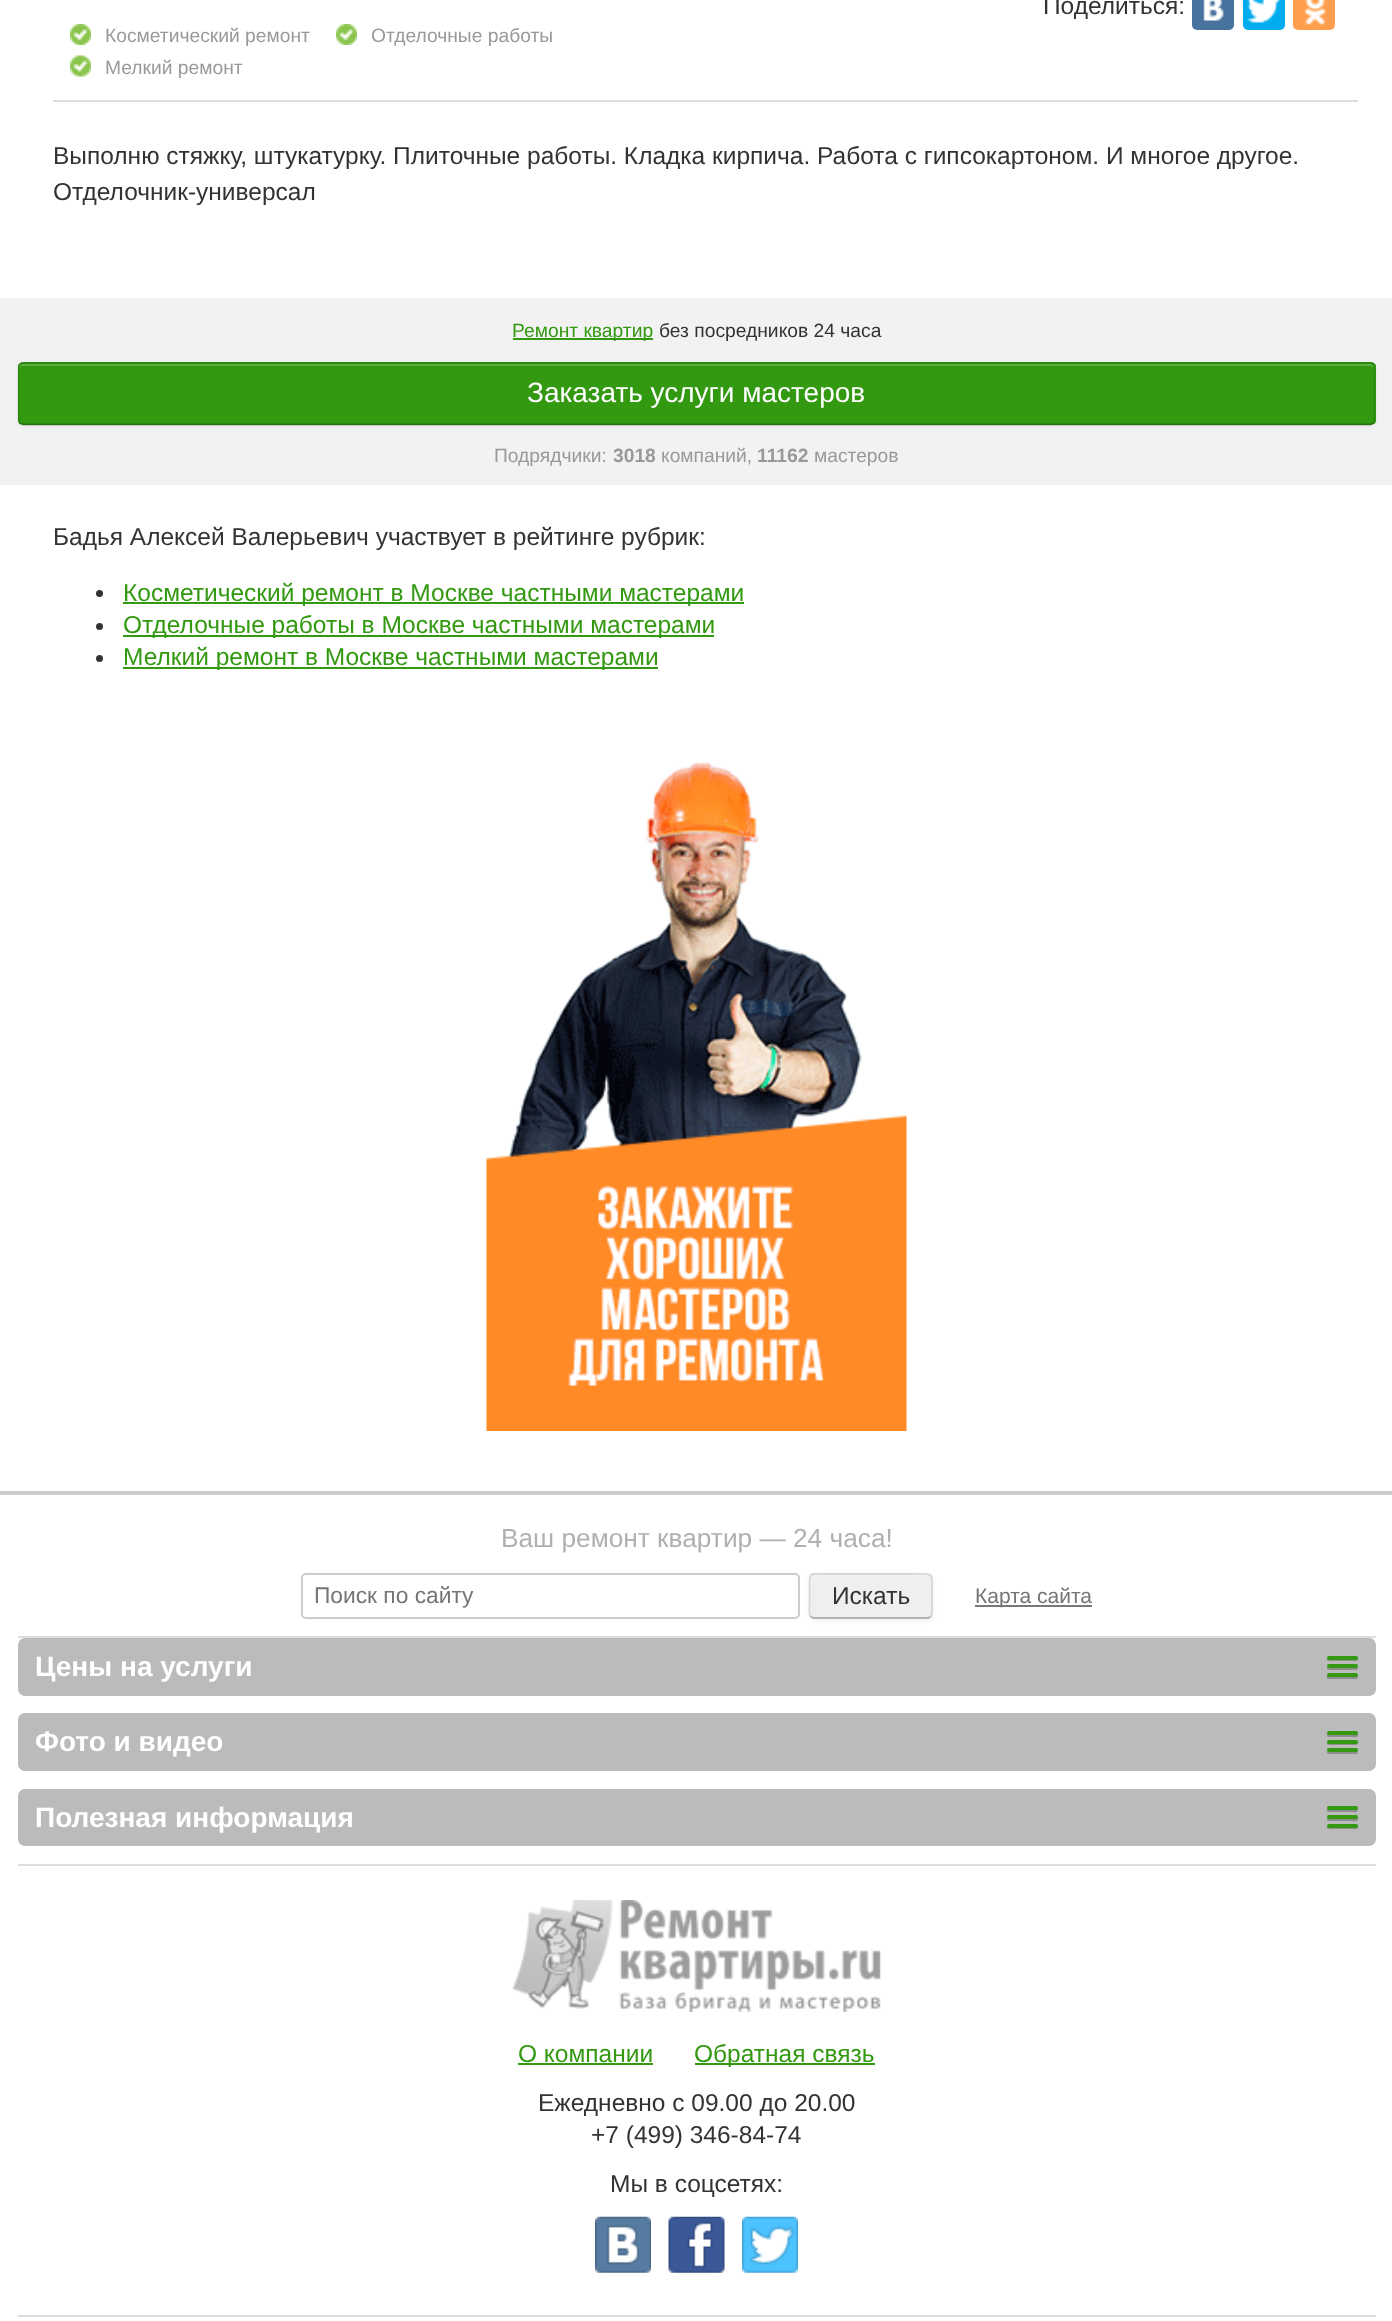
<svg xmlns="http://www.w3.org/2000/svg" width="1392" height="2321">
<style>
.a{font:24.5px Liberation Sans;fill:#333}
.b{font:19.25px Liberation Sans;fill:#999}
.c{font:19.25px Liberation Sans;fill:#329911}
.d{font:19.25px Liberation Sans;fill:#333}
.e{font:28px Liberation Sans;fill:#fff}
.f{font:bold 19.25px Liberation Sans;fill:#999}
.g{font:24.5px Liberation Sans;fill:#329911}
.h{font:26.25px Liberation Sans;fill:#b0b0b0}
.i{font:22.75px Liberation Sans;fill:#757575}
.j{font:21px Liberation Sans;fill:#757575}
.k{font:bold 28px Liberation Sans;fill:#fff}
</style>
<defs>
<clipPath id="clip1"><rect x="18" y="362" width="1358" height="63" rx="5"/></clipPath>
</defs>
<rect width="100%" height="100%" fill="#fff"/>
<path fill="#ccc" d="M0 1491h1392v4H0z"/>
<path fill="#ddd" d="M53 100h1305v2H53z"/>
<rect fill="#48729e" x="1192" y="-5" width="42" height="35" rx="5"/>
<image href="1.png" x="1203" y="0" width="21" height="21"/>
<rect fill="#00aced" x="1243" y="-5" width="42" height="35" rx="5"/>
<image href="2.png" x="1247" y="0" width="33" height="23"/>
<rect fill="#ff9f4d" x="1293" y="-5" width="42" height="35" rx="5"/>
<image href="3.png" x="1305" y="0" width="21" height="25"/>
<image href="4.png" x="70" y="24" width="21" height="21"/>
<image href="4.png" x="336" y="24" width="21" height="21"/>
<image href="5.png" x="70" y="55" width="21" height="22"/>
<path fill="#f2f2f2" d="M0 298h1392v187H0z"/>
<path fill="#329911" d="M513 338h140v2H513z"/>
<rect fill="#0000000d" filter="blur(2px)" x="18" y="364" width="1358" height="63" rx="5"/>
<rect fill="#329911" x="18" y="362" width="1358" height="63" rx="5"/>
<g clip-path="url(#clip1)">
<path fill="#329911" d="M18 364h1358v60H18z"/>
</g>
<path fill="#5bad41" d="M23 366h1347c2 0 4 1 4 3v-1c0-2-2-4-4-4h-1347c-2 0-4 2-4 4v1c0-2 2-3 4-3z"/>
<path fill="none" stroke="#00000040" stroke-width="1.8" d="M1373.5 423l-3.5 1.5h-1347l-3.5-1.5"/>
<path fill="none" stroke="#0000001a" stroke-width="1.8" d="M19.5 423c-.5-.5-1-2-1-3v-52.5c0-1 .5-2.5 1-3c1-1 2-1.5 3.5-1.5h1347c1.5 0 2.5 .5 3.5 1.5c.5 .5 1 2 1 3v52.5c0 1-.5 2.5-1 3"/>
<circle fill="#333" cx="99.5" cy="593.5" r="3.5"/>
<path fill="#329911" d="M123 602h621v2H123z"/>
<circle fill="#333" cx="99.5" cy="626.5" r="3.5"/>
<path fill="#329911" d="M123 635h591v2H123z"/>
<circle fill="#333" cx="99.5" cy="658.5" r="3.5"/>
<path fill="#329911" d="M123 667h535v2H123z"/>
<image href="6.png" x="486" y="762" width="421" height="669"/>
<rect fill="none" stroke="#ccc" stroke-width="2" x="302" y="1574" width="497" height="44" rx="4"/>
<rect fill="#0000000d" filter="blur(2px)" x="809" y="1575" width="124" height="46" rx="5"/>
<rect fill="#efefef" x="809" y="1573" width="124" height="46" rx="5"/>
<path fill="#f2f2f2" d="M814 1577h114c1 0 3 1 3 3c0-10-20-5-23-5h-75c-3 0-23-5-23 5c0-2 2-3 4-3z"/>
<path fill="none" stroke="#b3b3b3" stroke-width="1.8" d="M930.5 1616.5l-2.5 1.5h-95.5h-18.5l-3.5-1.5"/>
<path fill="none" stroke="#0000001a" stroke-width="1.8" d="M810.5 1616.5c-2.5-2.5-1-11.5-1-14.5v-17.5c0-3.5-1-10.5 4.5-10.5h94.5c27.5 0 23.5-4 23.5 22v11.5c0 2.5 1 7-1.5 9"/>
<path fill="#777" d="M975 1605h117v2H975z"/>
<path fill="#ddd" d="M18 1636h1358v2H18z"/>
<rect fill="#bbb" x="18" y="1638" width="1358" height="58" rx="7"/>
<path fill="#8c8c8c" d="M1327 1658.5c-1 3.5 5.5 2.5 6.5 2.5h18c1 0 8 1 6.5-3l-1.5 1h-28.5z"/>
<rect fill="#329911" x="1327" y="1656" width="31" height="4" rx="2"/>
<path fill="#8c8c8c" d="M1327 1667.5c-1 3.5 5.5 2.5 6.5 2.5h18c.5 0 8.5 1 6-3l-1 .5h-28.5z"/>
<rect fill="#329911" x="1327" y="1664" width="31" height="4" rx="2"/>
<path fill="#8c8c8c" d="M1327 1676c-1.5 4 5.5 3 6.5 3h18c1 0 6 1 6.5-1.5l-.5-1.5l-1 .5c-2.5 .5-28.5 .5-29.5-.5z"/>
<rect fill="#329911" x="1327" y="1673" width="31" height="4" rx="2"/>
<rect fill="#bbb" x="18" y="1713" width="1358" height="58" rx="7"/>
<path fill="#8c8c8c" d="M1327.5 1734c-2.5 4 5.5 3 6 3h18c1 0 6 1 6.5-1.5c0-.5 0-1.5-.5-2l-1 .5c-2.5 .5-28.5 .5-29 0z"/>
<rect fill="#329911" x="1327" y="1731" width="31" height="4" rx="2"/>
<path fill="#8c8c8c" d="M1327 1742.5c-1 3.5 5.5 2.5 6.5 2.5h18c1 0 8 1 6.5-3l-1.5 1h-28.5z"/>
<rect fill="#329911" x="1327" y="1740" width="31" height="4" rx="2"/>
<path fill="#8c8c8c" d="M1327 1751.5c-1 3.5 5.5 2.5 6.5 2.5h18c.5 0 8.5 1 6-3l-1 .5h-28.5z"/>
<rect fill="#329911" x="1327" y="1748" width="31" height="4" rx="2"/>
<rect fill="#bbb" x="18" y="1789" width="1358" height="57" rx="7"/>
<path fill="#8c8c8c" d="M1327 1809c-1.5 4 5.5 3 6.5 3h18c1 0 6 1 6.5-1.5l-.5-1.5l-1 .5c-2.5 .5-28.5 .5-29.5-.5z"/>
<rect fill="#329911" x="1327" y="1806" width="31" height="4" rx="2"/>
<path fill="#8c8c8c" d="M1327.5 1818c-2.5 4 5.5 3 6 3h18c1 0 6 1 6.5-1.5c0-.5 0-1.5-.5-2l-1 .5c-2.5 .5-28.5 .5-29 0z"/>
<rect fill="#329911" x="1327" y="1815" width="31" height="4" rx="2"/>
<path fill="#8c8c8c" d="M1327 1826.5c-1 3.5 5.5 2.5 6.5 2.5h18c1 0 8 1 6.5-3l-1.5 1h-28.5z"/>
<rect fill="#329911" x="1327" y="1824" width="31" height="4" rx="2"/>
<path fill="#ddd" d="M18 1864h1358v2H18z"/>
<image href="7.png" x="512" y="1900" width="369" height="112"/>
<path fill="#329911" d="M518 2063h135v2H518z"/>
<path fill="#329911" d="M695 2063h180v2H695z"/>
<image href="8.png" x="595" y="2216" width="56" height="57"/>
<image href="9.png" x="668" y="2216" width="57" height="57"/>
<image href="10.png" x="742" y="2216" width="56" height="57"/>
<path fill="#ddd" d="M18 2315h1358v2H18z"/>
<text class="a" x="1043" y="14">Поделиться:</text>
<text class="b" x="105" y="42">Косметический ремонт</text>
<text class="b" x="371" y="42">Отделочные работы</text>
<text class="b" x="105" y="74">Мелкий ремонт</text>
<text class="a" x="53" y="164">Выполню стяжку, штукатурку. Плиточные работы. Кладка кирпича. Работа с гипсокартоном. И многое другое.</text>
<text class="a" x="53" y="200">Отделочник-универсал</text>
<text class="c" x="512" y="337">Ремонт квартир</text>
<text class="d" x="659" y="337">без посредников 24 часа</text>
<text class="e" x="527" y="402">Заказать услуги мастеров</text>
<text class="b" x="494" y="462">Подрядчики:</text>
<text class="f" x="613" y="462">3018</text>
<text class="b" x="661" y="462">компаний,</text>
<text class="f" x="757" y="462">11162</text>
<text class="b" x="814" y="462">мастеров</text>
<text class="a" x="53" y="545">Бадья Алексей Валерьевич участвует в рейтинге рубрик:</text>
<text class="g" x="123" y="601">Косметический ремонт в Москве частными мастерами</text>
<text class="g" x="123" y="633">Отделочные работы в Москве частными мастерами</text>
<text class="g" x="123" y="665">Мелкий ремонт в Москве частными мастерами</text>
<text class="h" x="501" y="1547">Ваш ремонт квартир — 24 часа!</text>
<text class="i" x="314" y="1603">Поиск по сайту</text>
<text class="a" x="832" y="1604">Искать</text>
<text class="j" x="975" y="1603">Карта сайта</text>
<text class="k" x="35" y="1676">Цены на услуги</text>
<text class="k" x="35" y="1751">Фото и видео</text>
<text class="k" x="35" y="1827">Полезная информация</text>
<text class="g" x="518" y="2062">О компании</text>
<text class="g" x="694" y="2062">Обратная связь</text>
<text class="a" x="538" y="2111">Ежедневно с 09.00 до 20.00</text>
<text class="a" x="591" y="2143">+7 (499) 346-84-74</text>
<text class="a" x="610" y="2192">Мы в соцсетях:</text>
</svg>
